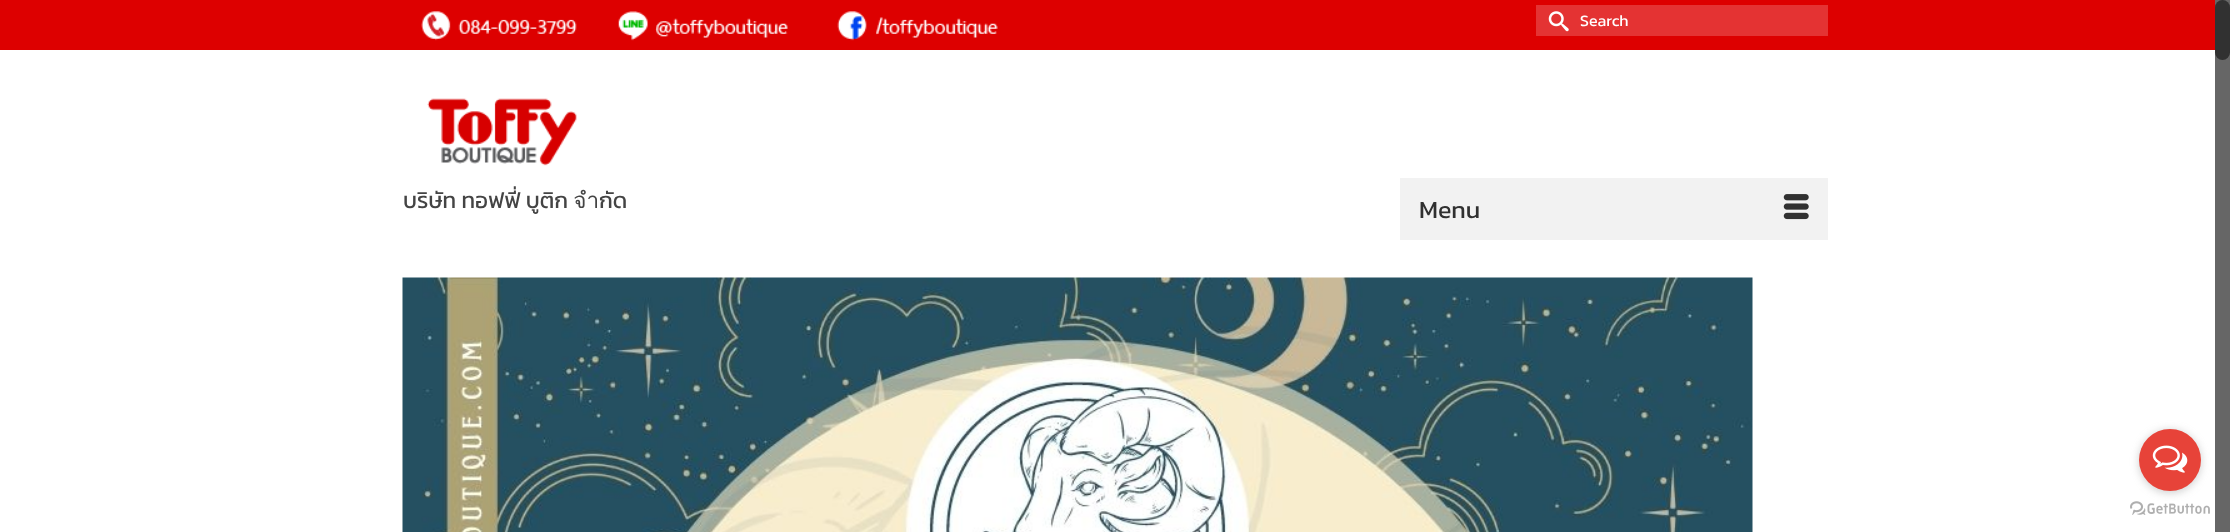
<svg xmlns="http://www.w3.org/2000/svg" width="2230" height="532">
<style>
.a{font:16px Kanit;fill:#fff}
.b{font:22.5px Kanit;fill:#444}
.c{font:25px Kanit;fill:#303030}
</style>
<rect width="100%" height="100%" fill="#fff"/>
<path fill="#d00" d="M0 0h2215v50H0z"/>
<image href="1.png" x="421" y="11" width="156" height="30"/>
<image href="2.png" x="618" y="11" width="170" height="30"/>
<image href="3.png" x="837" y="11" width="161" height="30"/>
<path fill="#e43333" d="M1536 5h292v31H1536z"/>
<image href="4.png" x="1548" y="11" width="21" height="21"/>
<image href="5.png" x="427" y="98" width="150" height="68"/>
<path fill="#f2f2f2" d="M1400 178h428v62H1400z"/>
<image href="6.png" x="1783" y="194" width="26" height="26"/>
<image href="7.png" x="402" y="277" width="1351" height="255"/>
<path fill="#666" d="M2215 0h15v532H2215z"/>
<rect fill="#313131" x="2215" width="15" height="60" rx="7.5"/>
<image href="9.png" x="2130" y="501" width="80" height="14"/>
<rect fill="#88888866" filter="blur(4.5px)" x="2139" y="430" width="62" height="63" rx="31"/>
<circle fill="#e74339" cx="2170" cy="460" r="31"/>
<image href="8.png" x="2152" y="445" width="36" height="28"/>
<text class="a" x="1580" y="26">Search</text>
<text class="b" x="403" y="208">บริษัท ทอฟฟี่ บูติก จำกัด</text>
<text class="c" x="1419" y="218">Menu</text>
</svg>
